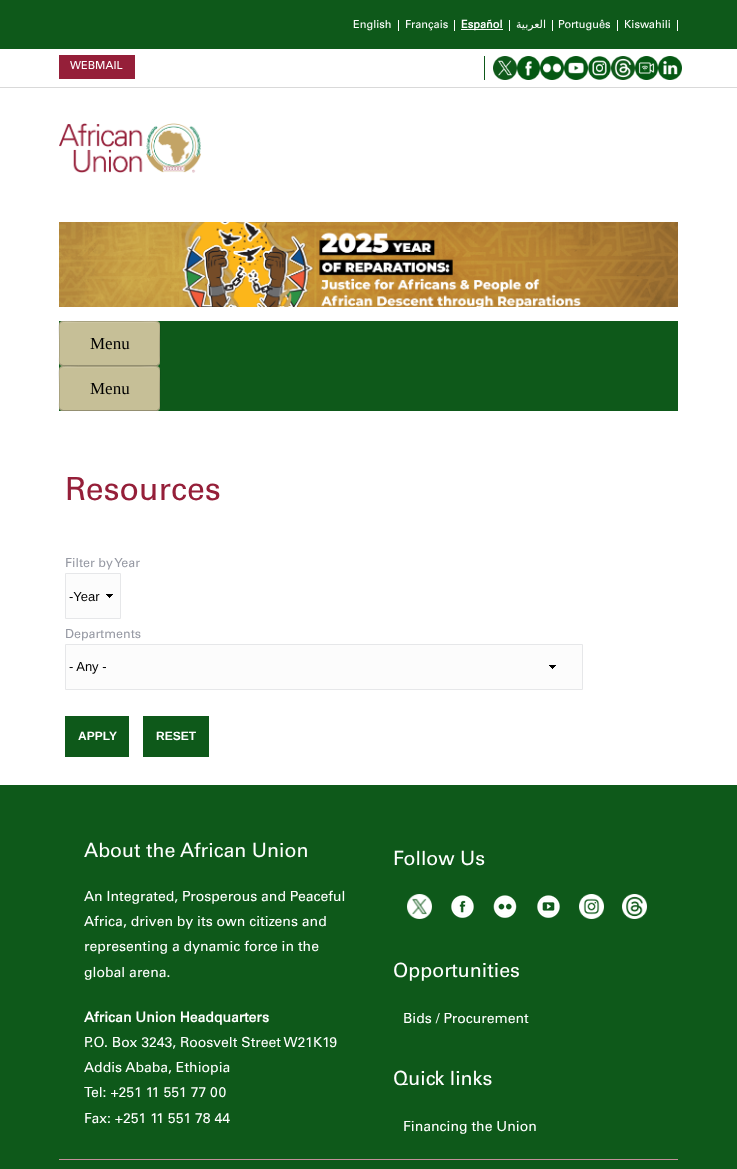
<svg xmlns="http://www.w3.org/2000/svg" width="737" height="1169">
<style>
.a{font:11px Univers;fill:#fff}
.b{font:bold 11px Univers;fill:#fff}
.c{font:11px DejaVu Sans;direction:rtl;fill:#fff}
.d{font:17px Liberation Serif;fill:#000}
.e{font:32px Univers;fill:#951f39}
.f{font:12.5px Univers;fill:#979aa4}
.g{font:13px Liberation Sans;fill:#000}
.h{font:bold 12px Liberation Sans;fill:#fff}
.i{font:19.6px Univers;fill:#fff}
.j{font:14px Univers;fill:#fff}
.k{font:bold 14px Univers;fill:#fff}
</style>
<rect width="100%" height="100%" fill="#fff"/>
<path fill="#0e591a" d="M0 0h737v49H0z"/>
<path fill="#fff" d="M398 20h1v11H398z"/>
<path fill="#fff" d="M454 20h1v11H454z"/>
<path fill="#fff" d="M509 20h1v11H509z"/>
<path fill="#fff" d="M461 29h42v1H461z"/>
<path fill="#fff" d="M552 20h1v11H552z"/>
<path fill="#fff" d="M617 20h1v11H617z"/>
<path fill="#fff" d="M677 20h1v11H677z"/>
<path fill="#d9d9d9" d="M0 87h737v1H0z"/>
<path fill="#951f39" d="M59 55h76v24H59z"/>
<path fill="#0e591a" d="M484 56h1v24H484z"/>
<image href="1.png" x="493" y="56" width="24" height="24"/>
<image href="2.png" x="517" y="56" width="23" height="24"/>
<image href="3.png" x="540" y="56" width="24" height="24"/>
<image href="4.png" x="564" y="56" width="24" height="24"/>
<image href="5.png" x="588" y="56" width="23" height="24"/>
<image href="6.png" x="611" y="56" width="24" height="24"/>
<image href="7.png" x="635" y="56" width="23" height="24"/>
<image href="8.png" x="658" y="56" width="24" height="24"/>
<image href="9.png" x="59" y="123" width="142" height="50"/>
<image href="10.png" x="59" y="222" width="619" height="85"/>
<path fill="#0e591a" d="M59 321h619v90H59z"/>
<path fill="#20652b" d="M59 362c0 9 15 5 19 5h62c5 0 20 4 20-5c0 2-2 4-4 4h-93c-2 0-4-2-4-4z"/>
<rect fill="#c6bf97" x="59" y="321" width="101" height="45" rx="4"/>
<path fill="#ccc5a1" d="M63 323h93c2 0 3 1 3 3c0-8-16-4-19-4h-62c-2 0-18-4-18 4c0-2 1-3 3-3z"/>
<path fill="none" stroke="#00000040" d="M158.5 364.5l-2 1h-78h-15.5l-2.5-1"/>
<path fill="none" stroke="#00000026" d="M60.5 364.5c-2-2-1-7-1-8.5v-12.5c0-25-5-22 19-22h62c24 0 19-3 19 22v12.5c0 1.5 1 6.5-1 8.5"/>
<path fill="#ffffff12" d="M59 407c0 9 15 5 19 5h62c5 0 20 4 20-5c0 2-2 4-4 4h-93c-2 0-4-2-4-4z"/>
<rect fill="#c6bf97" x="59" y="366" width="101" height="45" rx="4"/>
<path fill="#ccc5a1" d="M63 368h93c2 0 3 1 3 3c0-8-16-4-19-4h-62c-2 0-18-4-18 4c0-2 1-3 3-3z"/>
<path fill="none" stroke="#00000040" d="M158.5 409.5l-2 1h-78h-15.5l-2.5-1"/>
<path fill="none" stroke="#00000026" d="M60.5 409.5c-2-2-1-7-1-8.5v-12.5c0-25-5-22 19-22h62c24 0 19-3 19 22v12.5c0 1.5 1 6.5-1 8.5"/>
<path fill="#fcfcfc" d="M66 574h54v44H66z"/>
<image href="11.png" x="106" y="594" width="7" height="4"/>
<path fill="none" stroke="#e6e7e9" d="M65.5 573.5h55v45H65.5z"/>
<path fill="#fcfcfc" d="M66 645h516v44H66z"/>
<image href="11.png" x="549" y="665" width="7" height="4"/>
<path fill="none" stroke="#e6e7e9" d="M65.5 644.5h517v45H65.5z"/>
<path fill="#0e591a" d="M65 716h64v41H65z"/>
<path fill="#0e591a" d="M143 716h66v41H143z"/>
<path fill="#0e591a" d="M0 785h737v384H0z"/>
<image href="12.png" x="407" y="894" width="25" height="25"/>
<image href="13.png" x="451" y="895" width="23" height="23"/>
<image href="14.png" x="493" y="895" width="24" height="23"/>
<image href="15.png" x="537" y="895" width="23" height="23"/>
<image href="16.png" x="579" y="894" width="25" height="25"/>
<image href="17.png" x="622" y="894" width="25" height="25"/>
<path fill="#c2919b" d="M59 1159h619v1H59z"/>
<text class="a" x="353" y="28">English</text>
<text class="a" x="405" y="28">Français</text>
<text class="b" x="461" y="28">Español</text>
<text class="c" x="546" y="28">العربية</text>
<text class="a" x="558" y="28">Português</text>
<text class="a" x="624" y="28">Kiswahili</text>
<text class="a" x="70" y="69">WEBMAIL</text>
<text class="d" x="90" y="349"> Menu</text>
<text class="d" x="90" y="394"> Menu</text>
<text class="e" x="65" y="500">Resources</text>
<text class="f" x="65" y="567">Filter by Year</text>
<text class="g" x="69" y="601">-Year</text>
<text class="f" x="65" y="638">Departments</text>
<text class="g" x="69" y="671">- Any -</text>
<text class="h" x="78" y="740">APPLY</text>
<text class="h" x="156" y="740">RESET</text>
<text class="i" x="84" y="857">About the African Union</text>
<text class="j" x="84" y="901">An Integrated, Prosperous and Peaceful</text>
<text class="j" x="84" y="926">Africa, driven by its own citizens and</text>
<text class="j" x="84" y="951">representing a dynamic force in the</text>
<text class="j" x="84" y="977">global arena.</text>
<text class="k" x="84" y="1022">African Union Headquarters</text>
<text class="j" x="84" y="1047">P.O. Box 3243, Roosvelt Street W21K19</text>
<text class="j" x="84" y="1072">Addis Ababa, Ethiopia</text>
<text class="j" x="84" y="1097">Tel: +251 11 551 77 00</text>
<text class="j" x="84" y="1123">Fax: +251 11 551 78 44</text>
<text class="i" x="393" y="865">Follow Us</text>
<text class="i" x="393" y="977">Opportunities</text>
<text class="j" x="403" y="1023">Bids / Procurement</text>
<text class="i" x="393" y="1085">Quick links</text>
<text class="j" x="403" y="1131">Financing the Union</text>
</svg>
